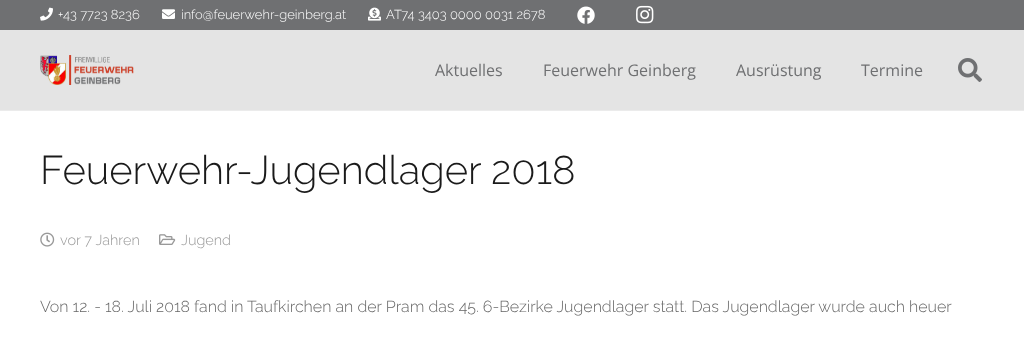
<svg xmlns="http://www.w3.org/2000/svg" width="1024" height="343">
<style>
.a{font:100 13px Raleway;fill:#fff}
.b{font:16px Open Sans;fill:#6f7072}
.c{font:100 40px Raleway;fill:#1a1a1a}
.d{font:100 14.5px Raleway;fill:#999}
.e{font:100 16px Raleway;fill:#666}
</style>
<rect width="100%" height="100%" fill="#fff"/>
<path fill="#6f7072" d="M0 0h1024v30H0z"/>
<image href="1.png" x="40" y="7" width="13" height="14"/>
<image href="2.png" x="162" y="9" width="13" height="10"/>
<image href="3.png" x="368" y="7" width="13" height="14"/>
<image href="4.png" x="577" y="6" width="18" height="18"/>
<image href="5.png" x="636" y="5" width="18" height="19"/>
<path fill="#ebebeb" d="M0 110h1024v1H0z"/>
<path fill="#e4e4e4" d="M0 30h1024v80H0z"/>
<image href="6.png" x="40" y="55" width="94" height="30"/>
<image href="7.png" x="958" y="58" width="24" height="24"/>
<image href="8.png" x="40" y="232" width="15" height="15"/>
<image href="9.png" x="159" y="234" width="17" height="11"/>
<text class="a" x="58" y="19">+43 7723 8236</text>
<text class="a" x="181" y="19">info@feuerwehr-geinberg.at</text>
<text class="a" x="386" y="19">AT74 3403 0000 0031 2678</text>
<text class="b" x="435" y="76">Aktuelles</text>
<text class="b" x="543" y="76">Feuerwehr Geinberg</text>
<text class="b" x="736" y="76">Ausrüstung</text>
<text class="b" x="861" y="76">Termine</text>
<text class="c" x="40" y="184">Feuerwehr-Jugendlager 2018</text>
<text class="d" x="60" y="245">vor 7 Jahren</text>
<text class="d" x="181" y="245">Jugend</text>
<text class="e" x="40" y="312">Von 12. - 18. Juli 2018 fand in Taufkirchen an der Pram das 45. 6-Bezirke Jugendlager statt. Das Jugendlager wurde auch heuer</text>
</svg>
